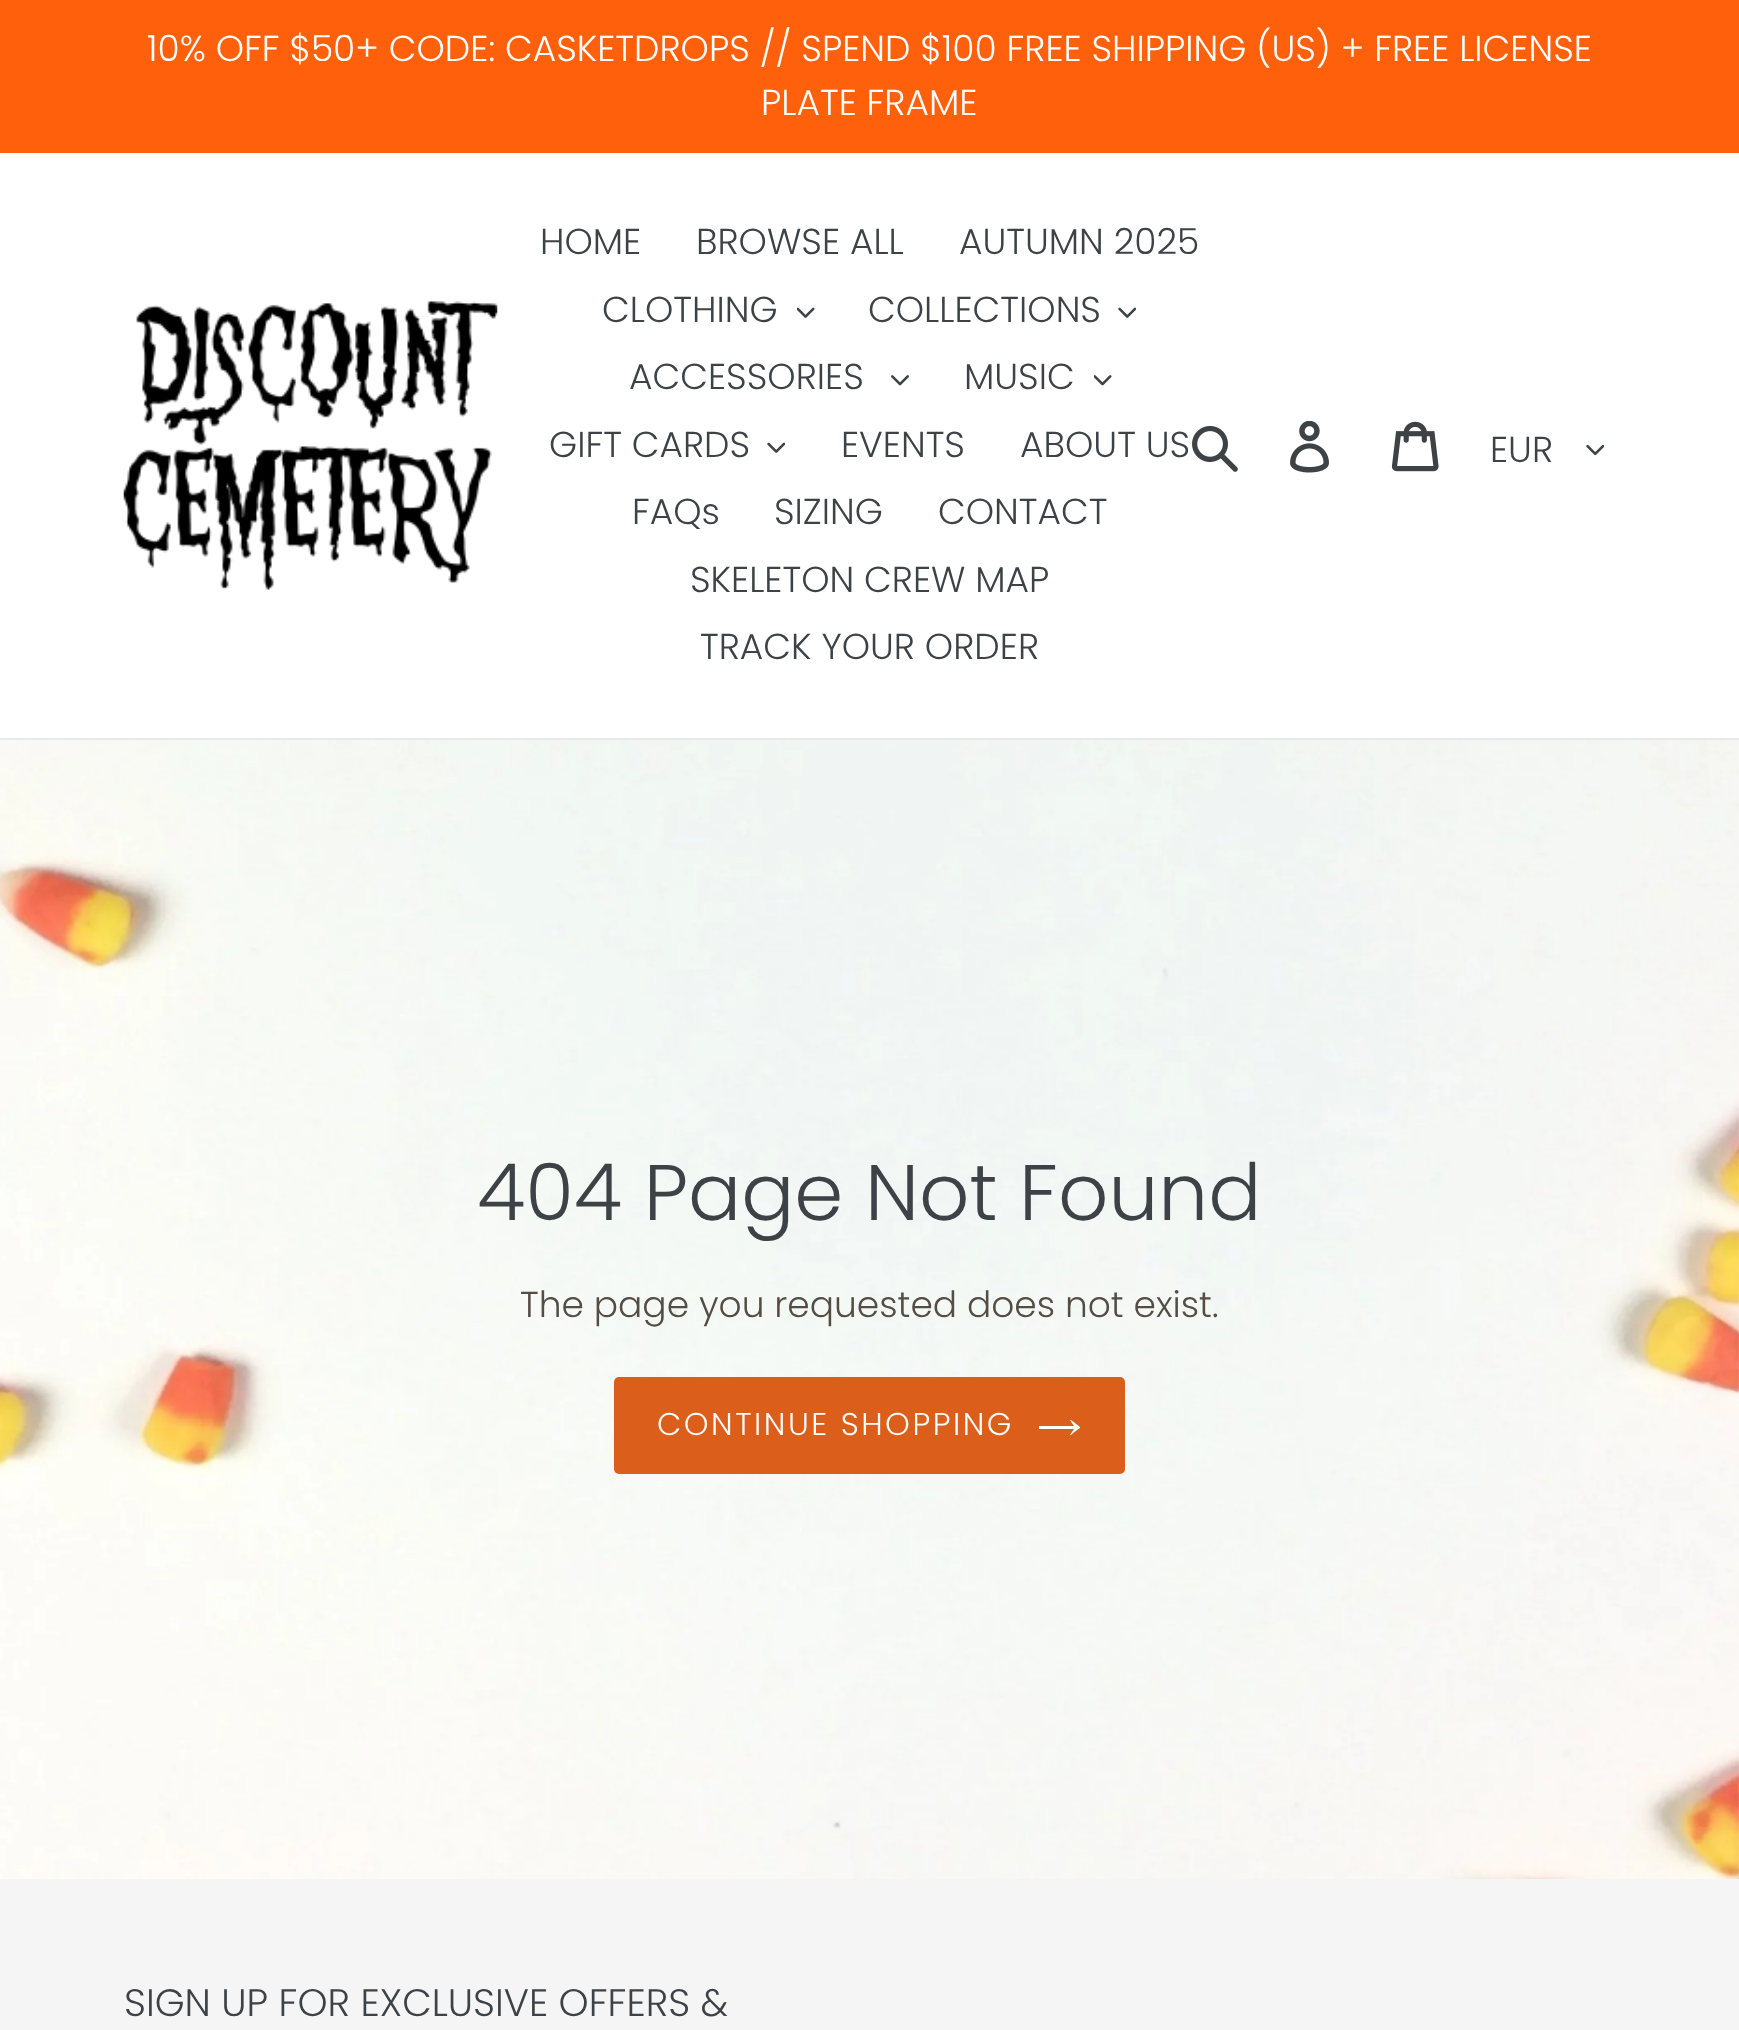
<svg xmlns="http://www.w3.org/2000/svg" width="1739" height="2030">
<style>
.a{font:300 36px Poppins;fill:#fff}
.b{font:300 36px Poppins;fill:#3d4246}
.c{font:300 78.75px Poppins;fill:#3d4246}
.d{font:300 36px Poppins;fill:#544d44}
.e{font:300 31.5px Poppins;letter-spacing:2.5px;fill:#fff}
.f{font:300 38.25px Poppins;fill:#3d4246}
</style>
<rect width="100%" height="100%" fill="#fff"/>
<image href="1.png" x="0" y="740" width="1739" height="1139"/>
<path fill="#ff600b" d="M0 0h1739v153H0z"/>
<path fill="#e8e9eb" d="M0 738h1739v2H0z"/>
<image href="2.png" x="123" y="301" width="375" height="289"/>
<image href="3.png" x="797" y="307" width="18" height="11"/>
<image href="4.png" x="1118" y="307" width="18" height="11"/>
<image href="5.png" x="891" y="375" width="18" height="11"/>
<image href="6.png" x="1094" y="375" width="18" height="11"/>
<image href="4.png" x="767" y="442" width="18" height="11"/>
<image href="7.png" x="1192" y="426" width="46" height="46"/>
<image href="8.png" x="1290" y="421" width="39" height="52"/>
<image href="9.png" x="1391" y="421" width="48" height="51"/>
<image href="10.png" x="1586" y="444" width="18" height="12"/>
<rect fill="#dc5e1b" x="614" y="1377" width="511" height="97" rx="5"/>
<path fill="#fff" fill-rule="evenodd" d="M1071 1420c3 2 6 5 9 7v1c-3 2-6 4-9 7h-1l4-6h-35v-3h35l-4-6z"/>
<path fill="#f5f5f5" d="M0 1879h1739v151H0z"/>
<text class="a" x="147" y="61">10% OFF $50+ CODE: CASKETDROPS // SPEND $100 FREE SHIPPING (US) + FREE LICENSE</text>
<text class="a" x="761" y="115">PLATE FRAME</text>
<text class="b" x="540" y="254">HOME</text>
<text class="b" x="696" y="254">BROWSE ALL</text>
<text class="b" x="959" y="254">AUTUMN 2025</text>
<text class="b" x="602" y="322">CLOTHING</text>
<text class="b" x="868" y="322">COLLECTIONS</text>
<text class="b" x="629" y="389">ACCESSORIES</text>
<text class="b" x="964" y="389">MUSIC</text>
<text class="b" x="549" y="457">GIFT CARDS</text>
<text class="b" x="841" y="457">EVENTS</text>
<text class="b" x="1020" y="457">ABOUT US</text>
<text class="b" x="632" y="524">FAQs</text>
<text class="b" x="774" y="524">SIZING</text>
<text class="b" x="938" y="524">CONTACT</text>
<text class="b" x="690" y="592">SKELETON CREW MAP</text>
<text class="b" x="700" y="659">TRACK YOUR ORDER</text>
<text class="b" x="1490" y="462">EUR</text>
<text class="c" x="477" y="1220">404 Page Not Found</text>
<text class="d" x="520" y="1317">The page you requested does not exist.</text>
<text class="e" x="657" y="1435">CONTINUE SHOPPING</text>
<text class="f" x="124" y="2016">SIGN UP FOR EXCLUSIVE OFFERS &amp;</text>
</svg>
